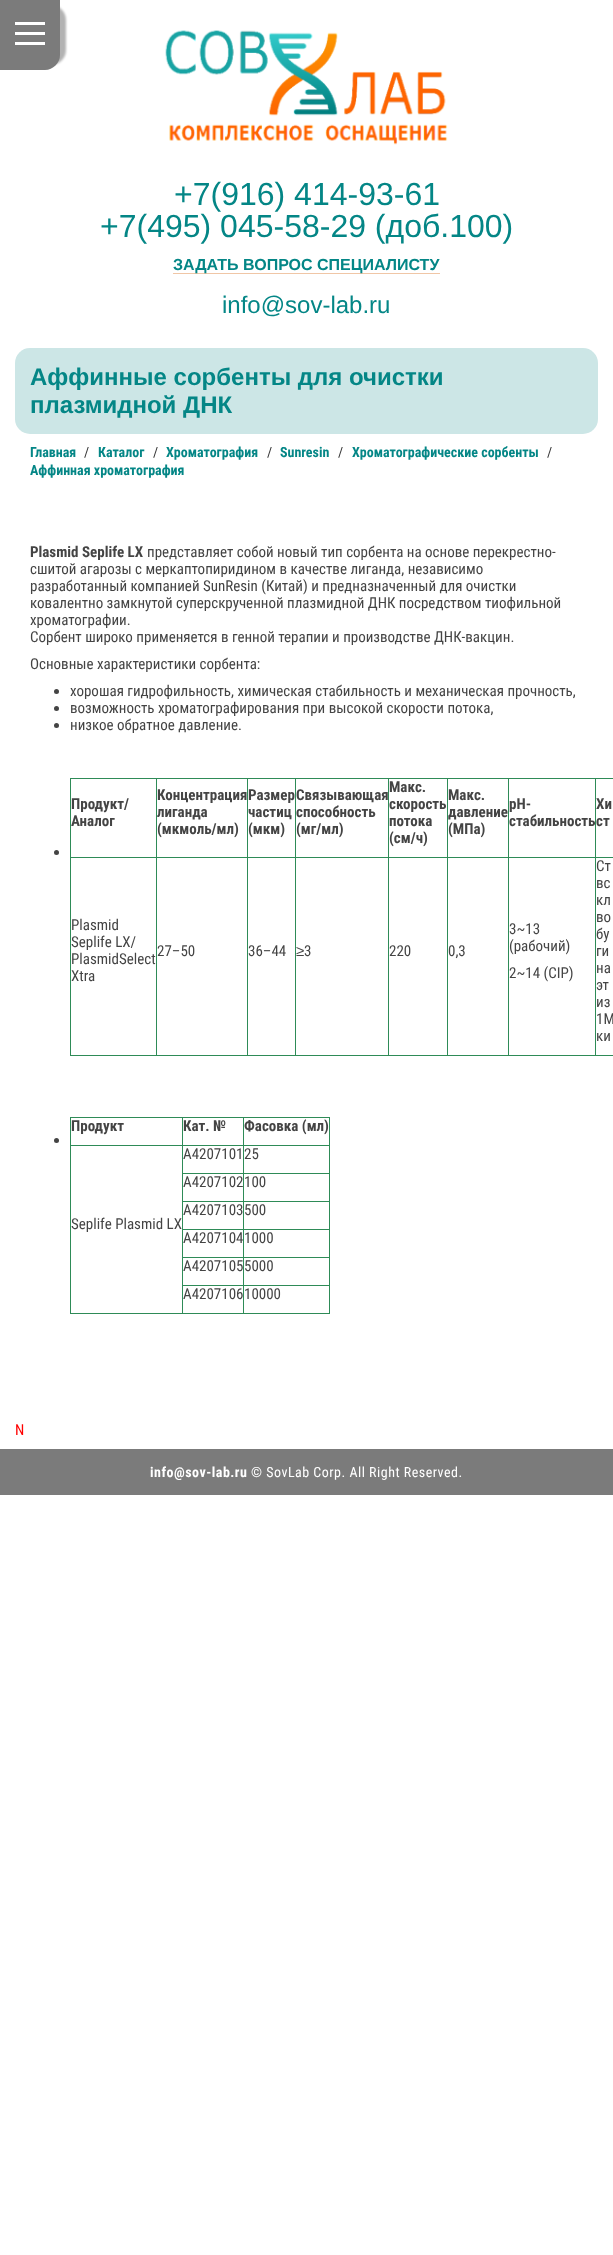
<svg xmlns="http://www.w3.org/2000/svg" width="613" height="2255">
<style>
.a{font:32px Liberation Sans;fill:#048686}
.b{font:bold 16px Arimo;fill:#048686}
.c{font:24px Liberation Sans;fill:#048686}
.d{font:bold 24px Arimo;fill:#048686}
.e{font:bold 14px Roboto Condensed;fill:#048686}
.f{font:14px Roboto Condensed;fill:#333}
.g{font:bold 15px Roboto Condensed;fill:#444}
.h{font:15px Roboto Condensed;fill:#444}
.i{font:15px Liberation Sans;fill:#444}
.j{font:15px Roboto Condensed;fill:#f00}
.k{font:bold 14px Roboto Condensed;letter-spacing:0.5px;fill:#fff}
.l{font:14px Roboto Condensed;letter-spacing:0.5px;fill:#fff}
</style>
<rect width="100%" height="100%" fill="#fff"/>
<rect fill="#0000004d" filter="blur(1px)" x="-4" y="5" width="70" height="60" rx="15"/>
<path fill="#7b7b7b" d="M60 0v55c0 8-7 15-15 15h-45v-70z"/>
<path fill="#fff" d="M15 22h30v3H15z"/>
<path fill="#fff" d="M15 42h30v3H15z"/>
<path fill="#fff" d="M15 32h30v3H15z"/>
<image href="1.png" x="165" y="30" width="283" height="115"/>
<path fill="#f0c6a6" d="M173 273h267v1H173z"/>
<rect fill="#cce6e6" x="15" y="348" width="583" height="86" rx="15"/>
<circle fill="#444" cx="56.5" cy="691.5" r="2.5"/>
<circle fill="#444" cx="56.5" cy="708.5" r="2.5"/>
<circle fill="#444" cx="56.5" cy="725.5" r="2.5"/>
<circle fill="#444" cx="56.5" cy="852.5" r="2.5"/>
<path fill="#2e8b57" d="M595 778h18v1H595z"/>
<path fill="#2e8b57" d="M595 857h18v1H595z"/>
<path fill="#2e8b57" d="M595 1055h18v1H595z"/>
<path fill="#2e8b57" d="M595 857h1v199H595z"/>
<path fill="#2e8b57" d="M508 857h88v1H508z"/>
<path fill="#2e8b57" d="M595 778h1v80H595z"/>
<path fill="#2e8b57" d="M508 778h88v1H508z"/>
<path fill="#2e8b57" d="M508 1055h88v1H508z"/>
<path fill="#2e8b57" d="M508 857h1v199H508z"/>
<path fill="#2e8b57" d="M447 857h62v1H447z"/>
<path fill="#2e8b57" d="M508 778h1v80H508z"/>
<path fill="#2e8b57" d="M447 778h62v1H447z"/>
<path fill="#2e8b57" d="M447 1055h62v1H447z"/>
<path fill="#2e8b57" d="M447 857h1v199H447z"/>
<path fill="#2e8b57" d="M388 857h60v1H388z"/>
<path fill="#2e8b57" d="M447 778h1v80H447z"/>
<path fill="#2e8b57" d="M388 778h60v1H388z"/>
<path fill="#2e8b57" d="M388 1055h60v1H388z"/>
<path fill="#2e8b57" d="M388 857h1v199H388z"/>
<path fill="#2e8b57" d="M295 857h94v1H295z"/>
<path fill="#2e8b57" d="M388 778h1v80H388z"/>
<path fill="#2e8b57" d="M295 778h94v1H295z"/>
<path fill="#2e8b57" d="M295 1055h94v1H295z"/>
<path fill="#2e8b57" d="M295 857h1v199H295z"/>
<path fill="#2e8b57" d="M247 857h49v1H247z"/>
<path fill="#2e8b57" d="M295 778h1v80H295z"/>
<path fill="#2e8b57" d="M247 778h49v1H247z"/>
<path fill="#2e8b57" d="M247 1055h49v1H247z"/>
<path fill="#2e8b57" d="M247 857h1v199H247z"/>
<path fill="#2e8b57" d="M156 857h92v1H156z"/>
<path fill="#2e8b57" d="M247 778h1v80H247z"/>
<path fill="#2e8b57" d="M156 778h92v1H156z"/>
<path fill="#2e8b57" d="M156 1055h92v1H156z"/>
<path fill="#2e8b57" d="M156 857h1v199H156z"/>
<path fill="#2e8b57" d="M70 857h87v1H70z"/>
<path fill="#2e8b57" d="M156 778h1v80H156z"/>
<path fill="#2e8b57" d="M70 778h87v1H70z"/>
<path fill="#2e8b57" d="M70 1055h87v1H70z"/>
<path fill="#2e8b57" d="M70 857h1v199H70z"/>
<path fill="#2e8b57" d="M70 778h1v80H70z"/>
<circle fill="#444" cx="56.5" cy="1140.5" r="2.5"/>
<path fill="#2e8b57" d="M243 1117h87v1H243z"/>
<path fill="#2e8b57" d="M243 1145h87v1H243z"/>
<path fill="#2e8b57" d="M243 1173h87v1H243z"/>
<path fill="#2e8b57" d="M243 1201h87v1H243z"/>
<path fill="#2e8b57" d="M243 1229h87v1H243z"/>
<path fill="#2e8b57" d="M243 1257h87v1H243z"/>
<path fill="#2e8b57" d="M243 1285h87v1H243z"/>
<path fill="#2e8b57" d="M329 1285h1v29H329z"/>
<path fill="#2e8b57" d="M243 1313h87v1H243z"/>
<path fill="#2e8b57" d="M243 1285h1v29H243z"/>
<path fill="#2e8b57" d="M182 1285h62v1H182z"/>
<path fill="#2e8b57" d="M243 1257h1v29H243z"/>
<path fill="#2e8b57" d="M182 1257h62v1H182z"/>
<path fill="#2e8b57" d="M243 1229h1v29H243z"/>
<path fill="#2e8b57" d="M182 1229h62v1H182z"/>
<path fill="#2e8b57" d="M243 1201h1v29H243z"/>
<path fill="#2e8b57" d="M182 1201h62v1H182z"/>
<path fill="#2e8b57" d="M243 1173h1v29H243z"/>
<path fill="#2e8b57" d="M182 1173h62v1H182z"/>
<path fill="#2e8b57" d="M243 1145h1v29H243z"/>
<path fill="#2e8b57" d="M182 1145h62v1H182z"/>
<path fill="#2e8b57" d="M243 1117h1v29H243z"/>
<path fill="#2e8b57" d="M182 1117h62v1H182z"/>
<path fill="#2e8b57" d="M182 1313h62v1H182z"/>
<path fill="#2e8b57" d="M182 1285h1v29H182z"/>
<path fill="#2e8b57" d="M182 1257h1v29H182z"/>
<path fill="#2e8b57" d="M182 1229h1v29H182z"/>
<path fill="#2e8b57" d="M182 1201h1v29H182z"/>
<path fill="#2e8b57" d="M182 1173h1v29H182z"/>
<path fill="#2e8b57" d="M182 1145h1v29H182z"/>
<path fill="#2e8b57" d="M70 1145h113v1H70z"/>
<path fill="#2e8b57" d="M182 1117h1v29H182z"/>
<path fill="#2e8b57" d="M70 1117h113v1H70z"/>
<path fill="#2e8b57" d="M70 1313h113v1H70z"/>
<path fill="#2e8b57" d="M70 1145h1v169H70z"/>
<path fill="#2e8b57" d="M70 1117h1v29H70z"/>
<path fill="#2e8b57" d="M329 1257h1v29H329z"/>
<path fill="#2e8b57" d="M329 1229h1v29H329z"/>
<path fill="#2e8b57" d="M329 1201h1v29H329z"/>
<path fill="#2e8b57" d="M329 1173h1v29H329z"/>
<path fill="#2e8b57" d="M329 1145h1v29H329z"/>
<path fill="#2e8b57" d="M329 1117h1v29H329z"/>
<path fill="#7b7b7b" d="M0 1449h613v46H0z"/>
<text class="a" x="174" y="205">+7(916) 414-93-61</text>
<text class="a" x="100" y="237">+7(495) 045-58-29 (доб.100)</text>
<text class="b" x="173" y="270">ЗАДАТЬ ВОПРОС СПЕЦИАЛИСТУ</text>
<text class="c" x="222" y="313">info@sov-lab.ru</text>
<text class="d" x="30" y="385">Аффинные сорбенты для очистки</text>
<text class="d" x="30" y="413">плазмидной ДНК</text>
<text class="e" x="30" y="457">Главная</text>
<text class="f" x="84" y="457">/</text>
<text class="e" x="98" y="457">Каталог</text>
<text class="f" x="153" y="457">/</text>
<text class="e" x="166" y="457">Хроматография</text>
<text class="f" x="267" y="457">/</text>
<text class="e" x="280" y="457">Sunresin</text>
<text class="f" x="338" y="457">/</text>
<text class="e" x="352" y="457">Хроматографические сорбенты</text>
<text class="f" x="547" y="457">/</text>
<text class="e" x="30" y="475">Аффинная хроматография</text>
<text class="g" x="30" y="557">Plasmid Seplife LX</text>
<text class="h" x="147" y="557">представляет собой новый тип сорбента на основе перекрестно-</text>
<text class="h" x="30" y="574">сшитой агарозы с меркаптопиридином в качестве лиганда, независимо</text>
<text class="h" x="30" y="591">разработанный компанией SunResin (Китай) и предназначенный для очистки</text>
<text class="h" x="30" y="608">ковалентно замкнутой суперскрученной плазмидной ДНК посредством тиофильной</text>
<text class="h" x="30" y="625">хроматографии.</text>
<text class="h" x="30" y="642">Сорбент широко применяется в генной терапии и производстве ДНК-вакцин.</text>
<text class="h" x="30" y="669">Основные характеристики сорбента:</text>
<text class="h" x="70" y="696">хорошая гидрофильность, химическая стабильность и механическая прочность,</text>
<text class="h" x="70" y="713">возможность хроматографирования при высокой скорости потока,</text>
<text class="h" x="70" y="730">низкое обратное давление.</text>
<text class="g" x="71" y="809">Продукт/</text>
<text class="g" x="71" y="826">Аналог</text>
<text class="g" x="157" y="800">Концентрация</text>
<text class="g" x="157" y="817">лиганда</text>
<text class="g" x="157" y="834">(мкмоль/мл)</text>
<text class="g" x="248" y="800">Размер</text>
<text class="g" x="248" y="817">частиц</text>
<text class="g" x="248" y="834">(мкм)</text>
<text class="g" x="296" y="800">Связывающая</text>
<text class="g" x="296" y="817">способность</text>
<text class="g" x="296" y="834">(мг/мл)</text>
<text class="g" x="389" y="792">Макс.</text>
<text class="g" x="389" y="809">скорость</text>
<text class="g" x="389" y="826">потока</text>
<text class="g" x="389" y="843">(см/ч)</text>
<text class="g" x="448" y="800">Макс.</text>
<text class="g" x="448" y="817">давление</text>
<text class="g" x="448" y="834">(МПа)</text>
<text class="g" x="509" y="809">pH-</text>
<text class="g" x="509" y="826">стабильность</text>
<text class="g" x="596" y="809">Хи</text>
<text class="g" x="596" y="826">ст</text>
<text class="h" x="71" y="930">Plasmid</text>
<text class="h" x="71" y="947">Seplife LX/</text>
<text class="h" x="71" y="964">PlasmidSelect</text>
<text class="h" x="71" y="981">Xtra</text>
<text class="h" x="157" y="956">27–50</text>
<text class="h" x="248" y="956">36–44</text>
<text class="i" x="296" y="956">≥</text>
<text class="h" x="304" y="956">3</text>
<text class="h" x="389" y="956">220</text>
<text class="h" x="448" y="956">0,3</text>
<text class="h" x="509" y="934">3~13</text>
<text class="h" x="509" y="951">(рабочий)</text>
<text class="h" x="509" y="978">2~14 (CIP)</text>
<text class="h" x="596" y="871">Ст</text>
<text class="h" x="596" y="888">вс</text>
<text class="h" x="596" y="905">кл</text>
<text class="h" x="596" y="922">во</text>
<text class="h" x="596" y="939">бу</text>
<text class="h" x="596" y="956">ги</text>
<text class="h" x="596" y="973">на</text>
<text class="h" x="596" y="990">эт</text>
<text class="h" x="596" y="1007">из</text>
<text class="h" x="596" y="1024">1М</text>
<text class="h" x="596" y="1041">ки</text>
<text class="g" x="71" y="1131">Продукт</text>
<text class="g" x="183" y="1131">Кат. №</text>
<text class="g" x="244" y="1131">Фасовка (мл)</text>
<text class="h" x="183" y="1159">A4207101</text>
<text class="h" x="244" y="1159">25</text>
<text class="h" x="71" y="1229">Seplife Plasmid LX</text>
<text class="h" x="183" y="1187">A4207102</text>
<text class="h" x="244" y="1187">100</text>
<text class="h" x="183" y="1215">A4207103</text>
<text class="h" x="244" y="1215">500</text>
<text class="h" x="183" y="1243">A4207104</text>
<text class="h" x="244" y="1243">1000</text>
<text class="h" x="183" y="1271">A4207105</text>
<text class="h" x="244" y="1271">5000</text>
<text class="h" x="183" y="1299">A4207106</text>
<text class="h" x="244" y="1299">10000</text>
<text class="j" x="15" y="1435">N</text>
<text class="k" x="150" y="1477">info@sov-lab.ru</text>
<text class="l" x="251" y="1477">© SovLab Corp. All Right Reserved.</text>
</svg>
